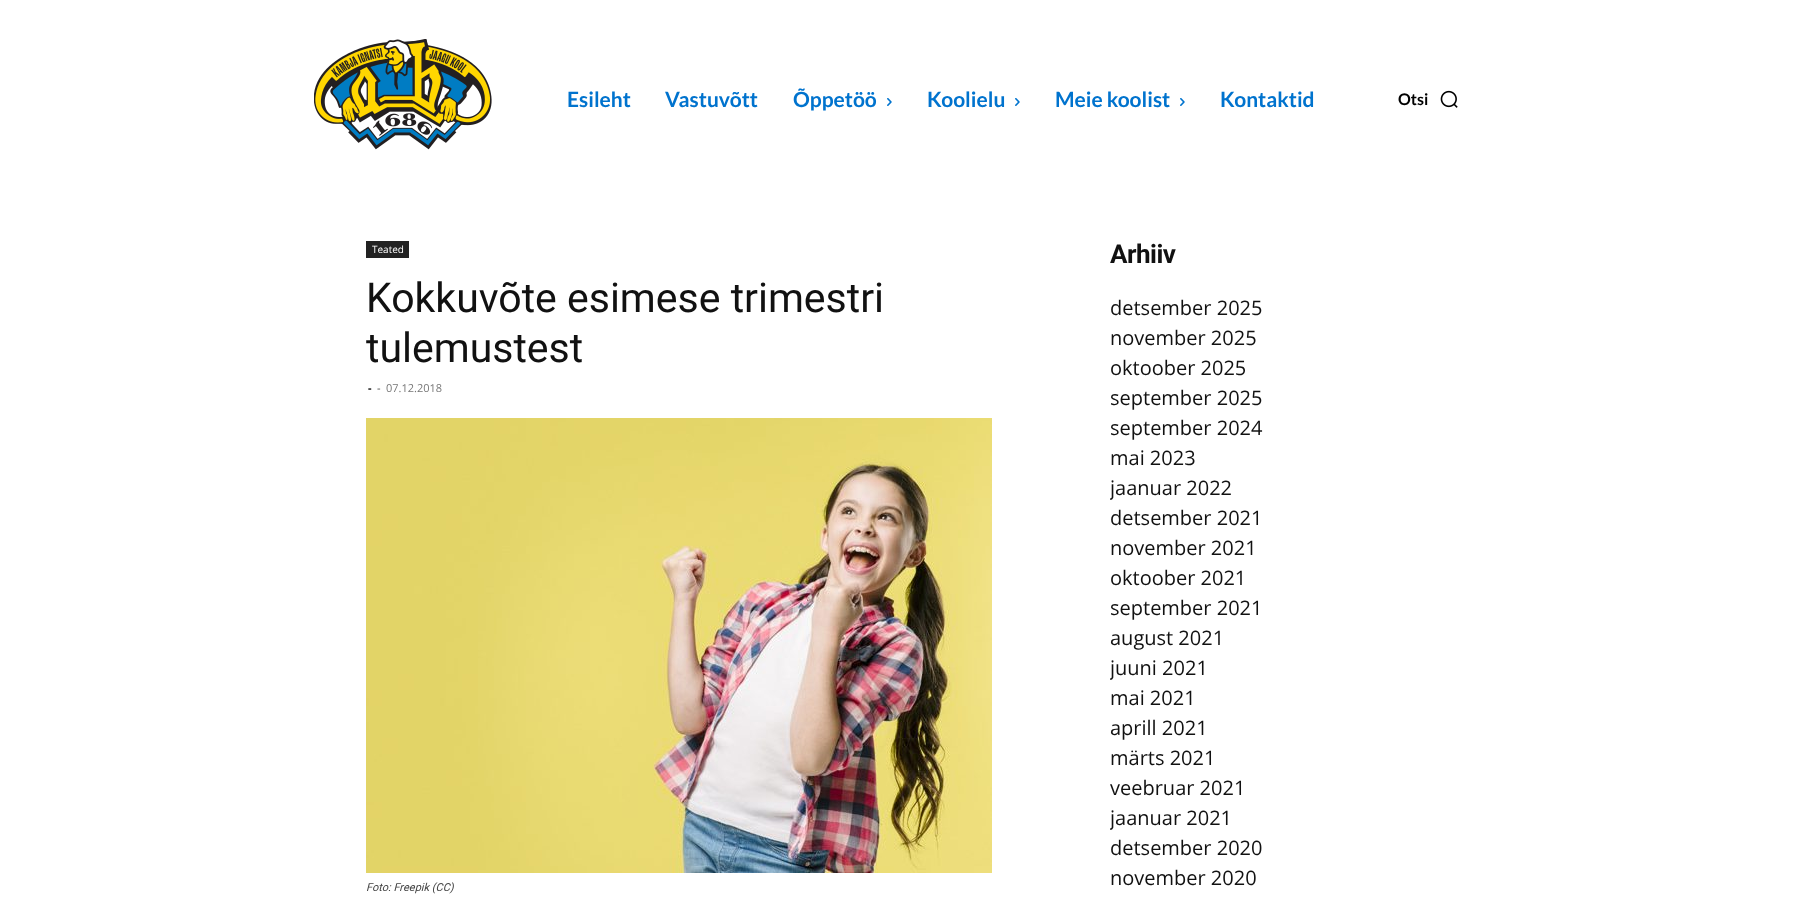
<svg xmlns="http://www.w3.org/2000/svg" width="1799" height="897">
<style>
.a{font:bold 21px Lato;fill:#0073ce}
.b{font:bold 16px Lato;fill:#000}
.c{font:10px Open Sans;fill:#fff}
.d{font:41px Roboto;fill:#111}
.e{font:bold 11px Open Sans;fill:#000}
.f{font:11px Open Sans;fill:#444}
.g{font:11px Open Sans;fill:#767676}
.h{font:italic 11px Roboto;fill:#444}
.i{font:bold 26px Roboto;letter-spacing:-0.5px;fill:#111}
.j{font:20px Open Sans;fill:#111}
</style>
<defs>
<clipPath id="clip1"><path d="M1110 241h324v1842H1110z"/></clipPath>
</defs>
<rect width="100%" height="100%" fill="#fff"/>
<image href="1.png" x="314" y="39" width="178" height="111"/>
<image href="2.png" x="887" y="98" width="5" height="8"/>
<image href="2.png" x="1015" y="98" width="5" height="8"/>
<image href="2.png" x="1180" y="98" width="5" height="8"/>
<image href="3.png" x="1440" y="90" width="18" height="18"/>
<path fill="#222" d="M366 241h43v17H366z"/>
<image href="4.png" x="366" y="418" width="626" height="455"/>
<text class="a" x="567" y="107">Esileht</text>
<text class="a" x="665" y="107">Vastuvõtt</text>
<text class="a" x="793" y="107">Õppetöö</text>
<text class="a" x="927" y="107">Koolielu</text>
<text class="a" x="1055" y="107">Meie koolist</text>
<text class="a" x="1220" y="107">Kontaktid</text>
<text class="b" x="1398" y="105">Otsi</text>
<text class="c" x="372" y="253">Teated</text>
<text class="d" x="366" y="312">Kokkuvõte esimese trimestri</text>
<text class="d" x="366" y="362">tulemustest</text>
<text class="e" x="368" y="392">-</text>
<text class="f" x="377" y="392">-</text>
<text class="g" x="386" y="392">07.12.2018</text>
<text class="h" x="366" y="891">Foto: Freepik (CC)</text>
<text class="i" x="1110" y="263">Arhiiv</text>
<text class="j" x="1110" y="315">detsember 2025</text>
<text class="j" x="1110" y="345">november 2025</text>
<text class="j" x="1110" y="375">oktoober 2025</text>
<text class="j" x="1110" y="405">september 2025</text>
<text class="j" x="1110" y="435">september 2024</text>
<text class="j" x="1110" y="465">mai 2023</text>
<g clip-path="url(#clip1)">
<text class="j" x="1110" y="495">jaanuar 2022</text>
</g>
<text class="j" x="1110" y="525">detsember 2021</text>
<text class="j" x="1110" y="555">november 2021</text>
<text class="j" x="1110" y="585">oktoober 2021</text>
<text class="j" x="1110" y="615">september 2021</text>
<text class="j" x="1110" y="645">august 2021</text>
<g clip-path="url(#clip1)">
<text class="j" x="1110" y="675">juuni 2021</text>
</g>
<text class="j" x="1110" y="705">mai 2021</text>
<text class="j" x="1110" y="735">aprill 2021</text>
<text class="j" x="1110" y="765">märts 2021</text>
<text class="j" x="1110" y="795">veebruar 2021</text>
<g clip-path="url(#clip1)">
<text class="j" x="1110" y="825">jaanuar 2021</text>
</g>
<text class="j" x="1110" y="855">detsember 2020</text>
<text class="j" x="1110" y="885">november 2020</text>
</svg>
